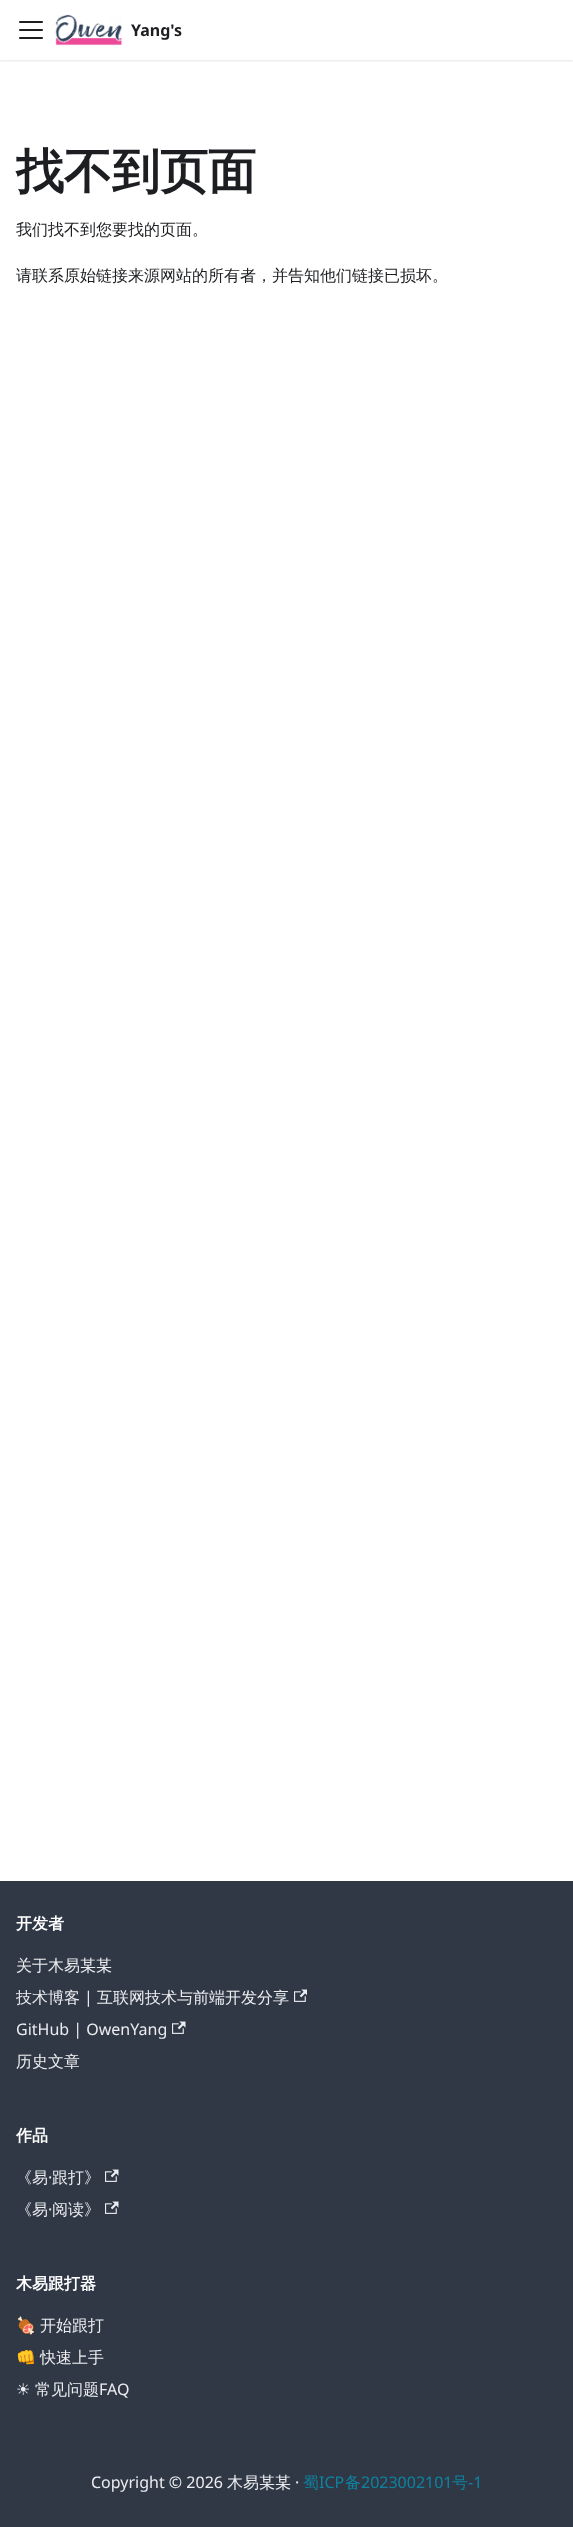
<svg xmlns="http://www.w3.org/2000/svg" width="573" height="2527">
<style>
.a{font:bold 16px Noto Sans;fill:#1c1e21}
.b{font:bold 48px WenQuanYi Zen Hei;fill:#1c1e21}
.c{font:500 16px WenQuanYi Zen Hei;fill:#1c1e21}
.d{font:bold 16px WenQuanYi Zen Hei;fill:#fff}
.e{font:500 16px WenQuanYi Zen Hei;fill:#ebedf0}
.f{font:16px Noto Sans;fill:#ebedf0}
.g{font:16px Noto Color Emoji;fill:#ebedf0}
.h{font:16px DejaVu Sans;fill:#ebedf0}
.i{font:500 16px WenQuanYi Zen Hei;fill:#0d83a0}
.j{font:16px Noto Sans;fill:#0d83a0}
</style>
<defs>
<clipPath id="clip1"><path d="M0 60h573v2H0z"/></clipPath>
</defs>
<rect width="100%" height="100%" fill="#fff"/>
<g clip-path="url(#clip1)">
<path fill="#0000001a" filter="blur(1px)" d="M0 1h573v60H0z"/>
</g>
<image href="1.png" x="19" y="21" width="24" height="18"/>
<image href="2.png" x="55" y="14" width="67" height="32"/>
<path fill="#303846" d="M0 1881h573v646H0z"/>
<image href="3.png" x="294" y="1989" width="13" height="13"/>
<image href="4.png" x="172" y="2021" width="14" height="13"/>
<image href="4.png" x="105" y="2169" width="14" height="13"/>
<image href="4.png" x="105" y="2201" width="14" height="13"/>
<text class="a" x="131" y="36">Yang's</text>
<text class="b" x="16" y="188">找不到页面</text>
<text class="c" x="16" y="235">我们找不到您要找的页面。</text>
<text class="c" x="16" y="281">请联系原始链接来源网站的所有者，并告知他们链接已损坏。</text>
<text class="d" x="16" y="1929">开发者</text>
<text class="e" x="16" y="1971">关于木易某某</text>
<text class="e" x="16" y="2003">技术博客</text>
<text class="f" x="84" y="2003">|</text>
<text class="e" x="97" y="2003">互联网技术与前端开发分享</text>
<text class="f" x="16" y="2035">GitHub | OwenYang</text>
<text class="e" x="16" y="2067">历史文章</text>
<text class="d" x="16" y="2141">作品</text>
<text class="e" x="16" y="2183">《易</text>
<text class="f" x="48" y="2183">·</text>
<text class="e" x="52" y="2183">跟打》</text>
<text class="e" x="16" y="2215">《易</text>
<text class="f" x="48" y="2215">·</text>
<text class="e" x="52" y="2215">阅读》</text>
<text class="d" x="16" y="2289">木易跟打器</text>
<text class="g" x="16" y="2331">🍖</text>
<text class="e" x="40" y="2331">开始跟打</text>
<text class="g" x="16" y="2363">👊</text>
<text class="e" x="40" y="2363">快速上手</text>
<text class="h" x="16" y="2395">☀</text>
<text class="e" x="35" y="2395">常见问题</text>
<text class="f" x="99" y="2395">FAQ</text>
<text class="f" x="91" y="2488">Copyright © 2026</text>
<text class="e" x="227" y="2488">木易某某</text>
<text class="f" x="295" y="2488">·</text>
<text class="i" x="303" y="2488">蜀</text>
<text class="j" x="319" y="2488">ICP</text>
<text class="i" x="345" y="2488">备</text>
<text class="j" x="361" y="2488">2023002101</text>
<text class="i" x="452" y="2488">号</text>
<text class="j" x="468" y="2488">-1</text>
</svg>
